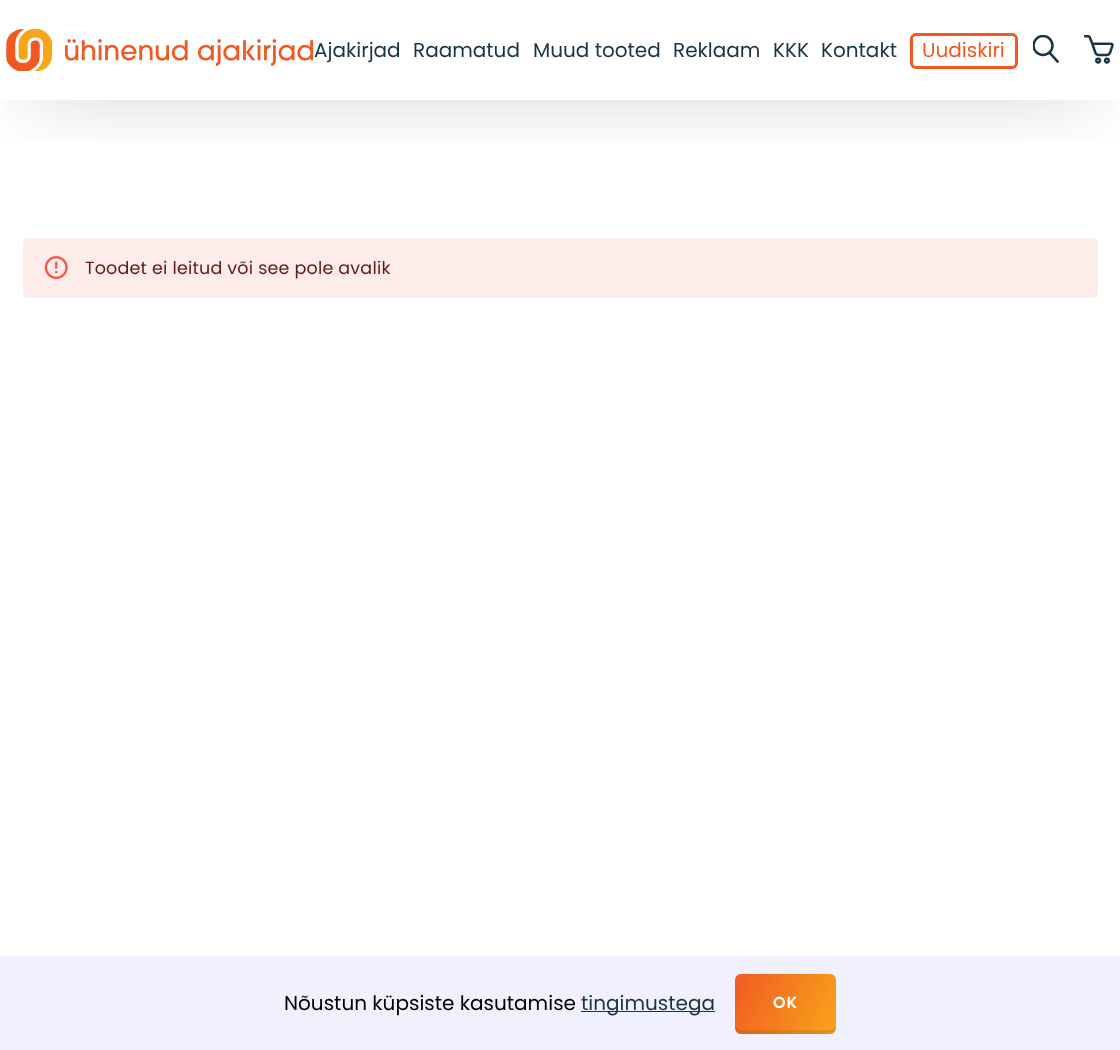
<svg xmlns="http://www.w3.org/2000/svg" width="1120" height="1050">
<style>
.a{font:20px Poppins;fill:#183547}
.b{font:20px Poppins;fill:#f05a22}
.c{font:17.5px Poppins;letter-spacing:0.2px;fill:#611a15}
.d{font:20px Poppins;fill:#000}
.e{font:600 16px Poppins;letter-spacing:1px;fill:#fff}
</style>
<defs>
<clipPath id="clip1"><path d="M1 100h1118v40H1z"/></clipPath>
<clipPath id="clip2"><path d="M1033 35h30v30H1033z"/></clipPath>
<linearGradient id="g1" gradientUnits="userSpaceOnUse" x1="839" y1="1028" x2="732" y2="980"><stop offset="0" stop-color="#f9a51a"/><stop offset="1" stop-color="#f05a22"/></linearGradient>
</defs>
<rect width="100%" height="100%" fill="#fff"/>
<g clip-path="url(#clip1)">
<path fill="#00000069" filter="blur(44px)" d="M30 30h1060v40H30z"/>
</g>
<image href="1.png" x="6" y="29" width="308" height="42"/>
<rect fill="none" stroke="#f05a22" stroke-width="3" x="911.5" y="34.5" width="105" height="33" rx="4.5"/>
<g clip-path="url(#clip2)">
<circle fill="none" stroke="#183547" stroke-width="2.5" cx="1043" cy="45.5" r="9.5"/>
</g>
<path fill="none" stroke="#183547" stroke-width="2.5" stroke-linecap="square" d="M1049.5 52.5l8 9"/>
<image href="2.png" x="1084" y="35" width="30" height="29"/>
<rect fill="#fdecea" x="23" y="238" width="1075" height="60" rx="5"/>
<image href="3.png" x="44" y="256" width="24" height="23"/>
<path fill="#f0f0ff" d="M0 956h1120v94H0z"/>
<path fill="#183547" d="M581 1011h134v1H581z"/>
<rect fill="url(#g1)" x="735" y="974" width="101" height="60" rx="6"/>
<path fill="#051c2a1a" d="M735 1024v4c0 3 3 6 6 6h89c3 0 6-3 6-6v-4c0 3-3 6-6 6h-89c-3 0-6-3-6-6z"/>
<text class="a" x="314" y="57">Ajakirjad</text>
<text class="a" x="413" y="57">Raamatud</text>
<text class="a" x="533" y="57">Muud tooted</text>
<text class="a" x="673" y="57">Reklaam</text>
<text class="a" x="773" y="57">KKK</text>
<text class="a" x="821" y="57">Kontakt</text>
<text class="b" x="922" y="57">Uudiskiri</text>
<text class="c" x="85" y="274">Toodet ei leitud või see pole avalik</text>
<text class="d" x="284" y="1010">Nõustun küpsiste kasutamise</text>
<text class="a" x="581" y="1010">tingimustega</text>
<text class="e" x="773" y="1008">OK</text>
</svg>
